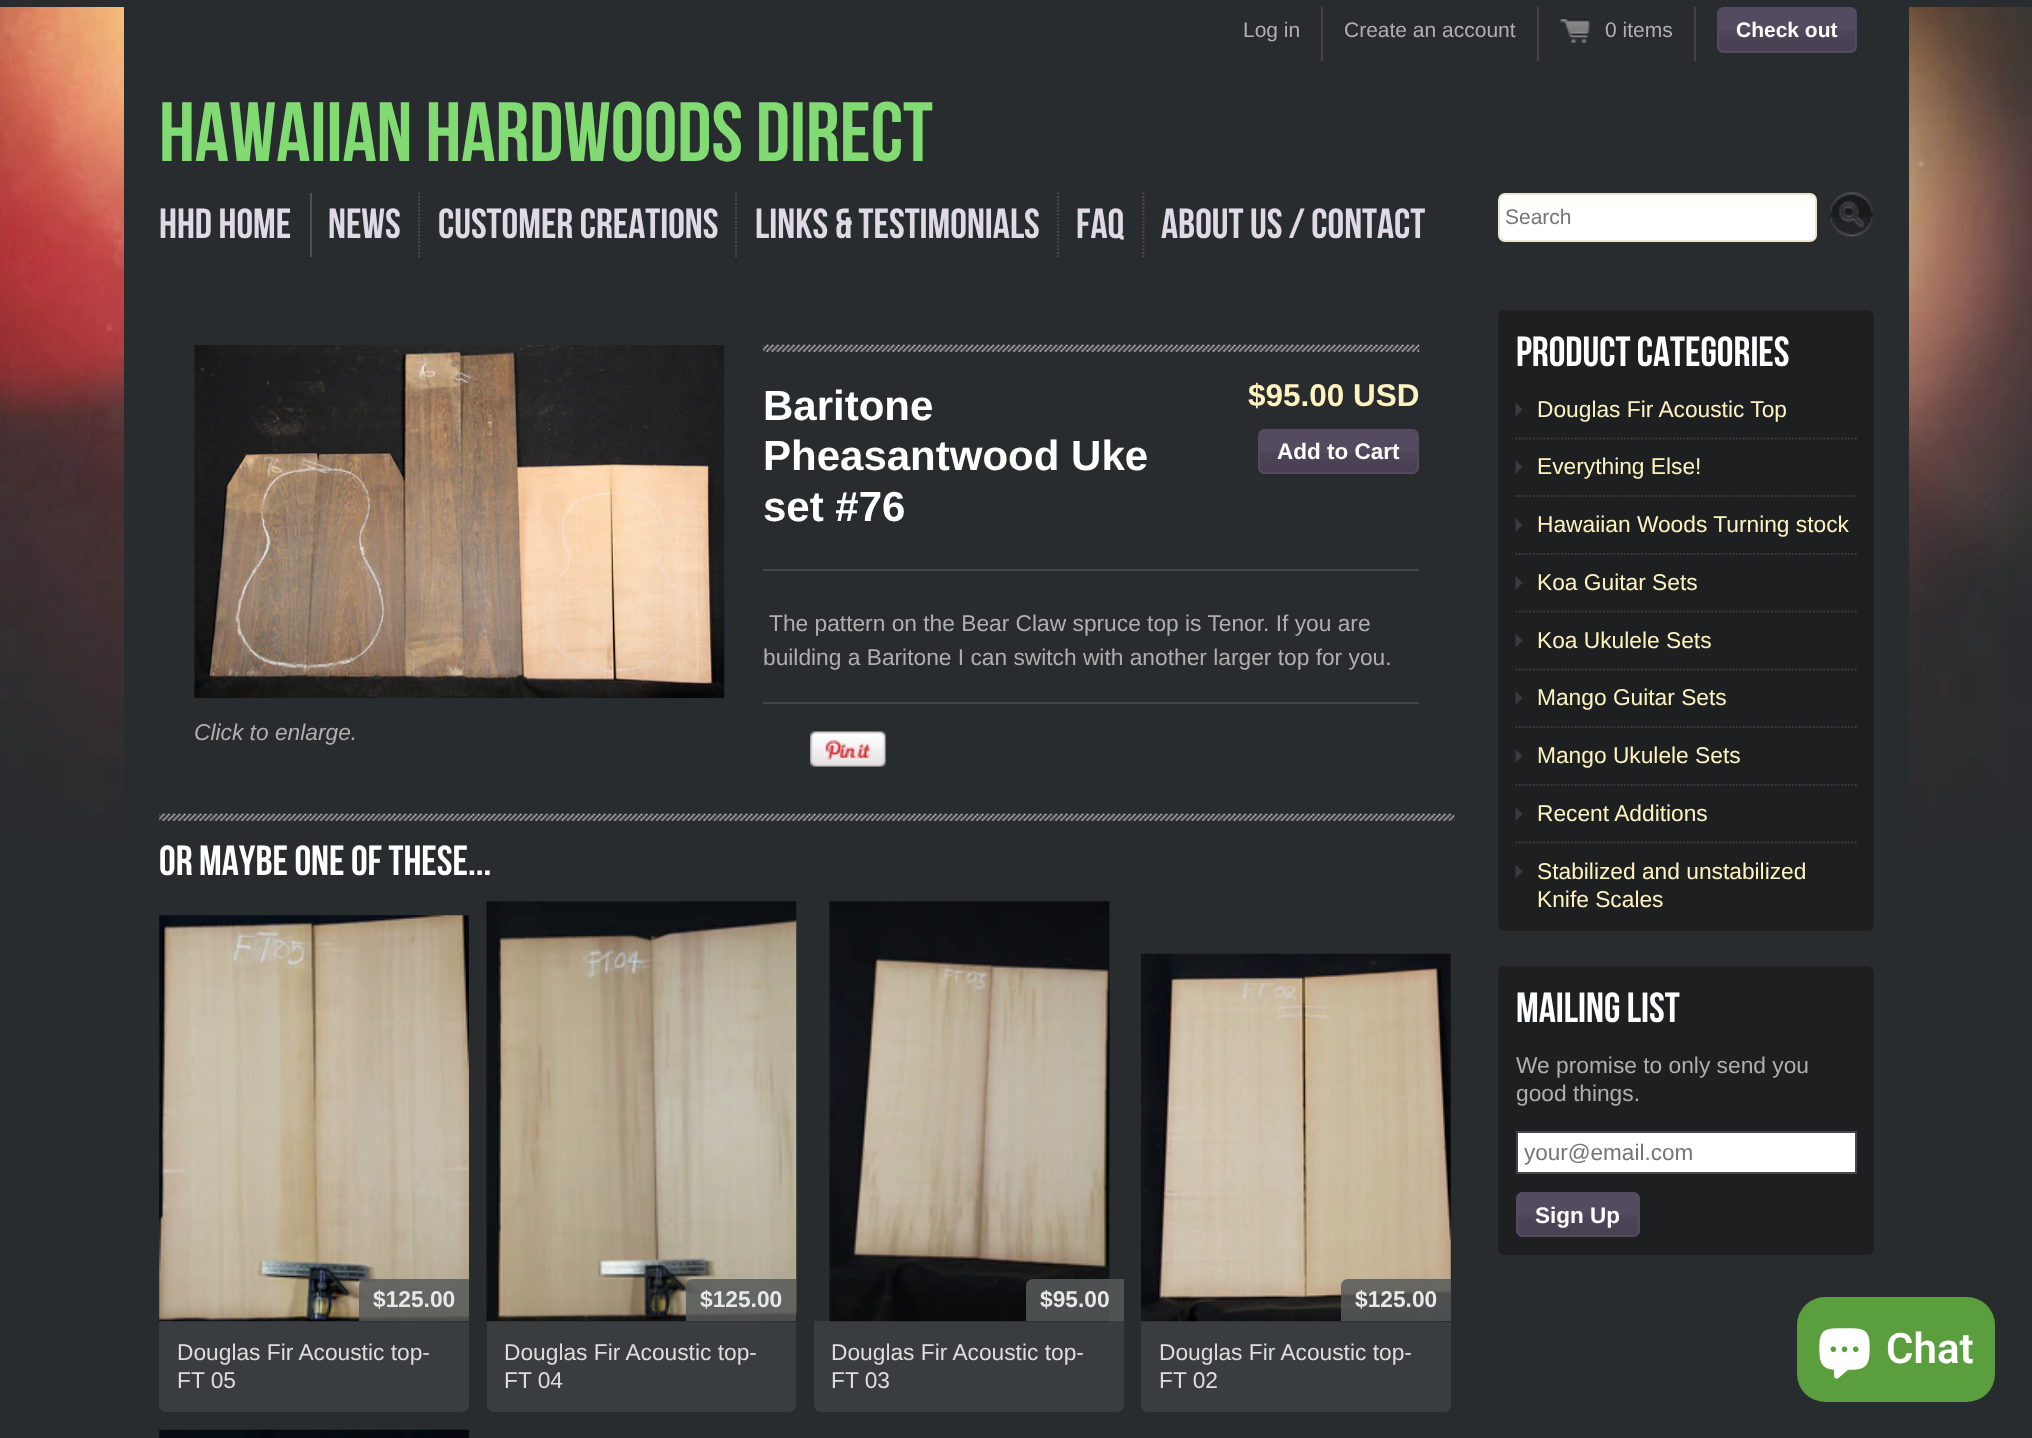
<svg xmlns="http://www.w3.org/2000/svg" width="2032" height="1438">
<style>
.a{font:21px Liberation Sans;fill:#afafaf}
.b{font:bold 21px Liberation Sans;fill:#fff}
.c{font:84px Bebas Neue;fill:#81db72}
.d{font:42px Bebas Neue;fill:#dfdae5}
.e{font:21px Liberation Sans;fill:#757575}
.f{font:bold 42px Liberation Sans;fill:#fff}
.g{font:bold 31.5px Liberation Sans;fill:#fcf3c1}
.h{font:bold 22.5px Liberation Sans;fill:#fff}
.i{font:22.75px Liberation Sans;fill:#afafaf}
.j{font:italic 22.75px Liberation Sans;fill:#afafaf}
.k{font:42px Bebas Neue;fill:#fff}
.l{font:bold 22.75px Liberation Sans;fill:#e8e8e7}
.m{font:22.75px Liberation Sans;fill:#ddd}
.n{font:22.75px Liberation Sans;fill:#fcf3c1}
.o{font:22.5px Liberation Sans;fill:#757575}
.p{font:600 42px Roboto;fill:#fff}
</style>
<rect width="100%" height="100%" fill="#282c2e"/>
<image href="1.png" x="0" y="7" width="2032" height="846"/>
<path fill="#282c2e" d="M124 7h1785v846H124z"/>
<path fill="#444" d="M1321 7h2v54H1321z"/>
<path fill="#444" d="M1537 7h2v54H1537z"/>
<path fill="#444" d="M1694 7h2v54H1694z"/>
<image href="2.png" x="1559" y="17" width="31" height="27"/>
<rect fill="#554b60" x="1717" y="7" width="140" height="46" rx="7"/>
<image href="3.png" x="1717" y="30" width="140" height="21"/>
<rect fill="none" stroke="#554b60" stroke-width="2" x="1718" y="8" width="138" height="44" rx="6"/>
<path fill="#554b60" d="M310 193h2v64H310z"/>
<path fill="none" stroke="#554b60" stroke-width="1.8" stroke-dasharray="1.75 1.75" d="M419 192.5v64.5"/>
<path fill="none" stroke="#554b60" stroke-width="1.8" stroke-dasharray="1.75 1.75" d="M736 192.5v64.5"/>
<path fill="none" stroke="#554b60" stroke-width="1.8" stroke-dasharray="1.75 1.75" d="M1058 192.5v64.5"/>
<path fill="none" stroke="#554b60" stroke-width="1.8" stroke-dasharray="1.75 1.75" d="M1143.5 192.5v64.5"/>
<rect fill="#fff" stroke="#e7e7ce" stroke-width="2" x="1499" y="194" width="317" height="47" rx="6"/>
<image href="4.png" x="1830" y="192" width="43" height="45"/>
<image href="5.png" x="763" y="344" width="657" height="8"/>
<path fill="#41474a" d="M763 569h656v2H763z"/>
<rect fill="#554b60" x="1258" y="429" width="161" height="45" rx="7"/>
<image href="6.png" x="1258" y="452" width="161" height="21"/>
<rect fill="none" stroke="#554b60" stroke-width="2" x="1259" y="430" width="159" height="43" rx="6"/>
<path fill="#41474a" d="M763 702h656v2H763z"/>
<image href="7.png" x="810" y="731" width="76" height="36"/>
<image href="8.png" x="194" y="345" width="531" height="353"/>
<image href="9.png" x="159" y="813" width="1296" height="8"/>
<path fill="#3a3d3f" d="M159 1321h310v84c0 4-3 7-7 7h-296c-4 0-7-3-7-7z"/>
<image href="10.png" x="159" y="915" width="310" height="407"/>
<path fill="#575a5bd9" d="M366 1279h103v42h-110v-35c0-4 3-7 7-7z"/>
<path fill="#3a3d3f" d="M487 1321h309v84c0 4-3 7-7 7h-295c-4 0-7-3-7-7z"/>
<image href="11.png" x="486" y="901" width="311" height="421"/>
<path fill="#575a5bd9" d="M693 1279h103v42h-110v-35c0-4 3-7 7-7z"/>
<path fill="#3a3d3f" d="M814 1321h310v84c0 4-3 7-7 7h-296c-4 0-7-3-7-7z"/>
<image href="12.png" x="829" y="901" width="281" height="421"/>
<path fill="#575a5bd9" d="M1033 1279h91v42h-98v-35c0-4 3-7 7-7z"/>
<path fill="#3a3d3f" d="M1141 1321h310v84c0 4-3 7-7 7h-296c-4 0-7-3-7-7z"/>
<image href="13.png" x="1141" y="953" width="310" height="369"/>
<path fill="#575a5bd9" d="M1348 1279h103v42h-110v-35c0-4 3-7 7-7z"/>
<image href="14.png" x="159" y="1429" width="310" height="9"/>
<rect fill="#1d1f20" x="1498" y="310" width="376" height="621" rx="7"/>
<path fill="#3a3d3f" d="M1515.5 416.5v-14l7 7z"/>
<path fill="none" stroke="#3a3d3f" stroke-width="1.8" stroke-dasharray="1.75 1.75" d="M1515.5 438.5h341.5"/>
<path fill="#3a3d3f" d="M1515.5 474v-14l7 7z"/>
<path fill="none" stroke="#3a3d3f" stroke-width="1.8" stroke-dasharray="1.75 1.75" d="M1515.5 496h341.5"/>
<path fill="#3a3d3f" d="M1515.5 532v-14l7 7z"/>
<path fill="none" stroke="#3a3d3f" stroke-width="1.8" stroke-dasharray="1.75 1.75" d="M1515.5 554h341.5"/>
<path fill="#3a3d3f" d="M1515.5 590v-14l7 7z"/>
<path fill="none" stroke="#3a3d3f" stroke-width="1.8" stroke-dasharray="1.75 1.75" d="M1515.5 611.5h341.5"/>
<path fill="#3a3d3f" d="M1515.5 647.5v-14l7 7z"/>
<path fill="none" stroke="#3a3d3f" stroke-width="1.8" stroke-dasharray="1.75 1.75" d="M1515.5 669.5h341.5"/>
<path fill="#3a3d3f" d="M1515.5 705v-14l7 7z"/>
<path fill="none" stroke="#3a3d3f" stroke-width="1.8" stroke-dasharray="1.75 1.75" d="M1515.5 727h341.5"/>
<path fill="#3a3d3f" d="M1515.5 763v-14l7 7z"/>
<path fill="none" stroke="#3a3d3f" stroke-width="1.8" stroke-dasharray="1.75 1.75" d="M1515.5 785h341.5"/>
<path fill="#3a3d3f" d="M1515.5 821v-14l7 7z"/>
<path fill="none" stroke="#3a3d3f" stroke-width="1.8" stroke-dasharray="1.75 1.75" d="M1515.5 842.5h341.5"/>
<path fill="#3a3d3f" d="M1515.5 878.5v-14l7 7z"/>
<rect fill="#1d1f20" x="1498" y="966" width="376" height="289" rx="7"/>
<path fill="#fff" stroke="#41474a" stroke-width="2" d="M1517 1132h339v41H1517z"/>
<rect fill="#554b60" x="1516" y="1192" width="124" height="45" rx="7"/>
<image href="15.png" x="1516" y="1215" width="124" height="21"/>
<rect fill="none" stroke="#554b60" stroke-width="2" x="1517" y="1193" width="122" height="43" rx="6"/>
<rect fill="#5a9e3d" x="1797" y="1297" width="198" height="105" rx="28"/>
<image href="16.png" x="1819" y="1328" width="51" height="51"/>
<text class="a" x="1243" y="37">Log in</text>
<text class="a" x="1344" y="37">Create an account</text>
<text class="a" x="1605" y="37">0 items</text>
<text class="b" x="1736" y="37">Check out</text>
<text class="c" x="159" y="161">Hawaiian Hardwoods Direct</text>
<text class="d" x="159" y="238">HHD Home</text>
<text class="d" x="328" y="238">News</text>
<text class="d" x="438" y="238">Customer Creations</text>
<text class="d" x="755" y="238">Links &amp; Testimonials</text>
<text class="d" x="1076" y="238">FAQ</text>
<text class="d" x="1161" y="238">About Us / Contact</text>
<text class="e" x="1505" y="224">Search</text>
<text class="f" x="763" y="420">Baritone</text>
<text class="f" x="763" y="470">Pheasantwood Uke</text>
<text class="f" x="763" y="521">set #76</text>
<text class="g" x="1248" y="406">$95.00 USD</text>
<text class="h" x="1277" y="459">Add to Cart</text>
<text class="i" x="769" y="631">The pattern on the Bear Claw spruce top is Tenor. If you are</text>
<text class="i" x="763" y="665">building a Baritone I can switch with another larger top for you.</text>
<text class="j" x="194" y="740">Click to enlarge.</text>
<text class="k" x="159" y="875">Or Maybe One Of These...</text>
<text class="l" x="373" y="1307">$125.00</text>
<text class="m" x="177" y="1360">Douglas Fir Acoustic top-</text>
<text class="m" x="177" y="1388">FT 05</text>
<text class="l" x="700" y="1307">$125.00</text>
<text class="m" x="504" y="1360">Douglas Fir Acoustic top-</text>
<text class="m" x="504" y="1388">FT 04</text>
<text class="l" x="1040" y="1307">$95.00</text>
<text class="m" x="831" y="1360">Douglas Fir Acoustic top-</text>
<text class="m" x="831" y="1388">FT 03</text>
<text class="l" x="1355" y="1307">$125.00</text>
<text class="m" x="1159" y="1360">Douglas Fir Acoustic top-</text>
<text class="m" x="1159" y="1388">FT 02</text>
<text class="k" x="1516" y="366">Product Categories</text>
<text class="n" x="1537" y="417">Douglas Fir Acoustic Top</text>
<text class="n" x="1537" y="474">Everything Else!</text>
<text class="n" x="1537" y="532">Hawaiian Woods Turning stock</text>
<text class="n" x="1537" y="590">Koa Guitar Sets</text>
<text class="n" x="1537" y="648">Koa Ukulele Sets</text>
<text class="n" x="1537" y="705">Mango Guitar Sets</text>
<text class="n" x="1537" y="763">Mango Ukulele Sets</text>
<text class="n" x="1537" y="821">Recent Additions</text>
<text class="n" x="1537" y="879">Stabilized and unstabilized</text>
<text class="n" x="1537" y="907">Knife Scales</text>
<text class="k" x="1516" y="1022">Mailing List</text>
<text class="i" x="1516" y="1073">We promise to only send you</text>
<text class="i" x="1516" y="1101">good things.</text>
<text class="o" x="1524" y="1160">your@email.com</text>
<text class="h" x="1535" y="1223">Sign Up</text>
<text class="p" x="1886" y="1363">Chat</text>
</svg>
